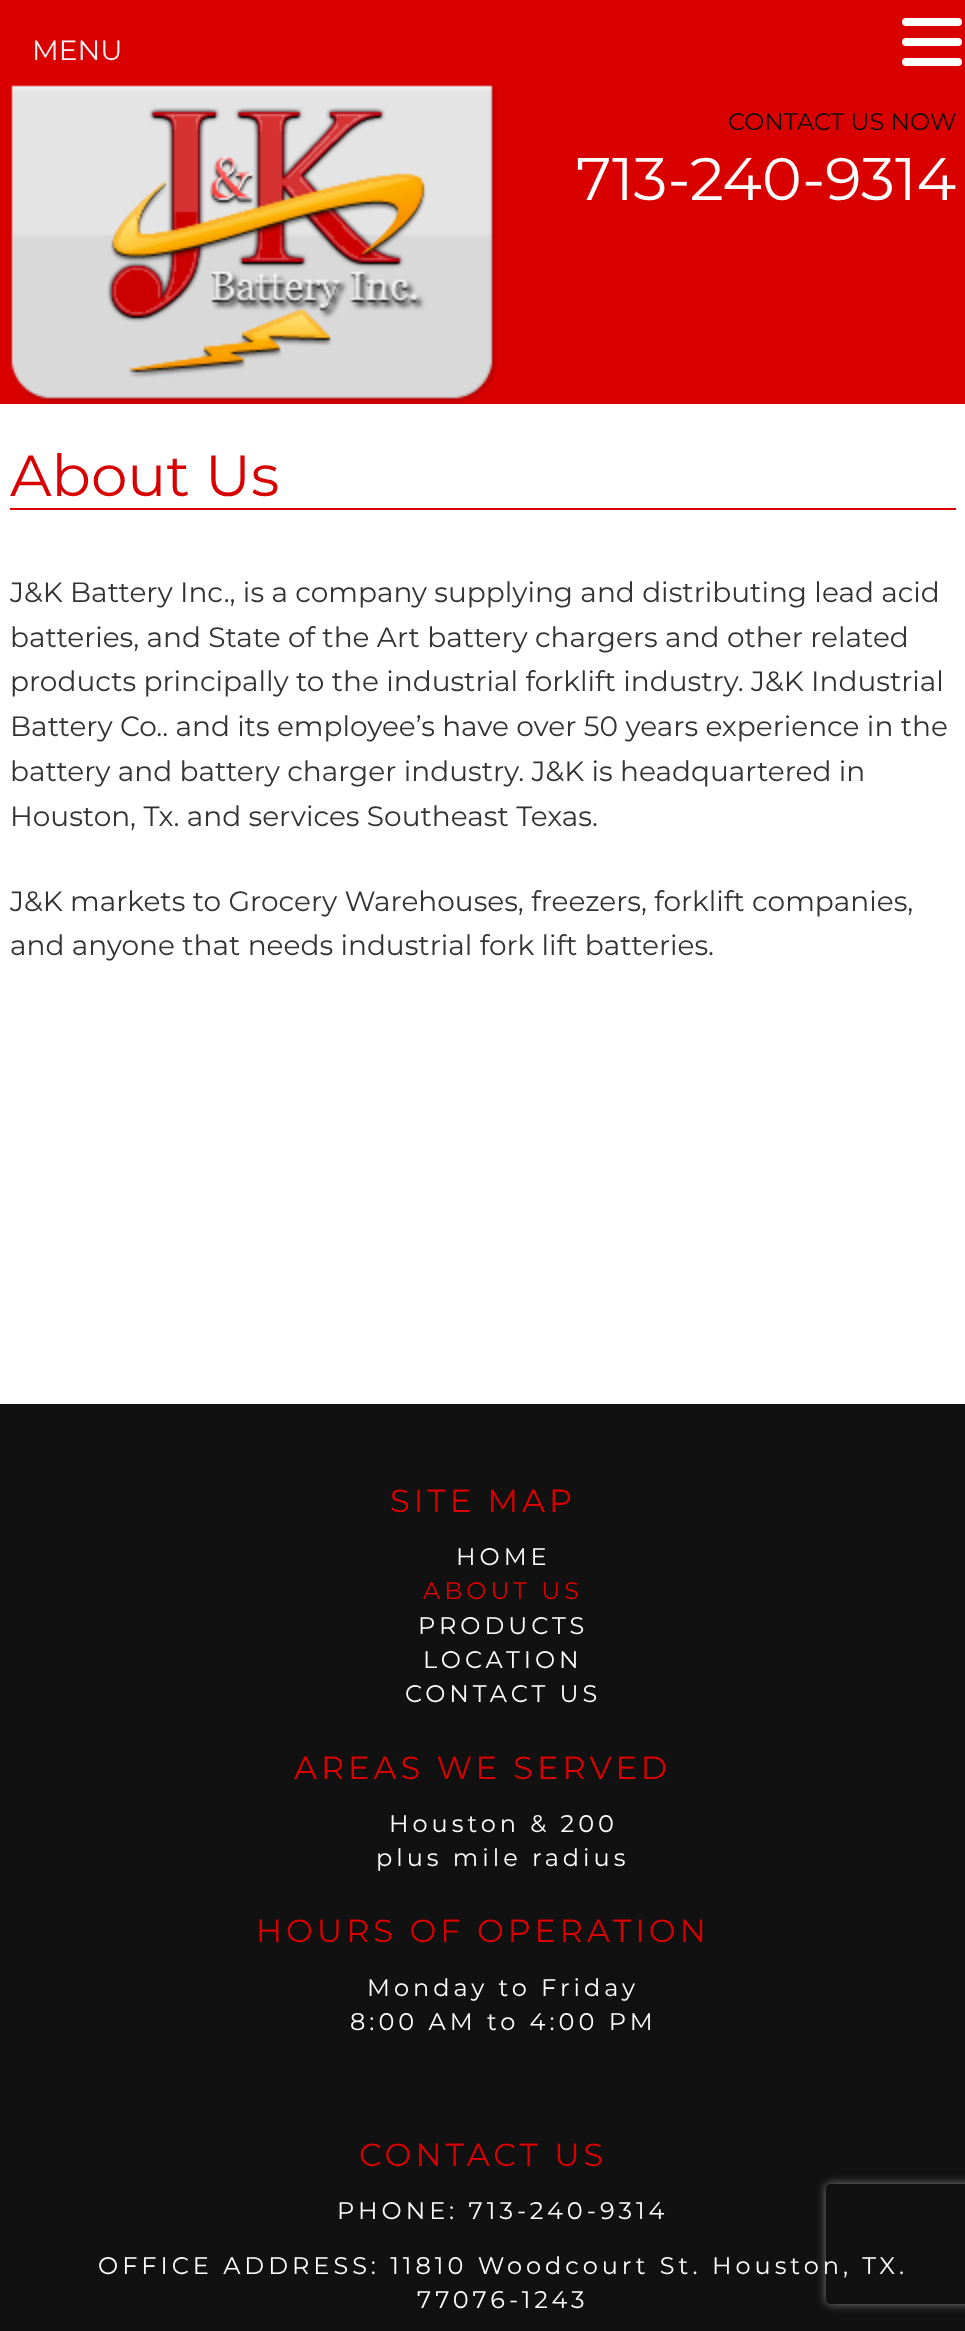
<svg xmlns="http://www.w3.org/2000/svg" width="965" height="2331">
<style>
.a{font:28px Montserrat;fill:#f2f2f2}
.b{font:24px Montserrat;fill:#111}
.c{font:60px Montserrat;fill:#fff}
.d{font:58px Montserrat;fill:#d80000}
.e{font:28px Montserrat;fill:#333}
.f{font:32px Montserrat;letter-spacing:4px;fill:#d80000}
.g{font:24px Montserrat;letter-spacing:4px;fill:#fff}
.h{font:24px Montserrat;letter-spacing:4px;fill:#d80000}
</style>
<defs>
<clipPath id="clip1"><path d="M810 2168h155v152h-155zm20 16h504c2 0 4 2 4 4v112c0 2-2 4-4 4h-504c-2 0-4-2-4-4v-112c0-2 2-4 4-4z" clip-rule="evenodd"/></clipPath>
</defs>
<rect width="100%" height="100%" fill="#fff"/>
<path fill="#d90000" d="M0 0h965v404H0z"/>
<rect fill="#fff" x="902" y="18" width="60" height="8" rx="4"/>
<rect fill="#fff" x="902" y="38" width="60" height="8" rx="4"/>
<rect fill="#fff" x="902" y="58" width="60" height="8" rx="4"/>
<image href="1.png" x="10" y="84" width="488" height="320"/>
<path fill="#d80000" d="M10 508h946v2H10z"/>
<path fill="#111" d="M0 1404h965v927H0z"/>
<g clip-path="url(#clip1)">
<rect fill="#808080" filter="blur(5px)" x="826" y="2184" width="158" height="120" rx="4"/>
</g>
<text class="a" x="32" y="60">MENU</text>
<text class="b" x="728" y="130">CONTACT US NOW</text>
<text class="c" x="576" y="200">713-240-9314</text>
<text class="d" x="10" y="496">About Us</text>
<text class="e" x="10" y="602">J&amp;K Battery Inc., is a company supplying and distributing lead acid</text>
<text class="e" x="10" y="647">batteries, and State of the Art battery chargers and other related</text>
<text class="e" x="10" y="691">products principally to the industrial forklift industry. J&amp;K Industrial</text>
<text class="e" x="10" y="736">Battery Co.. and its employee’s have over 50 years experience in the</text>
<text class="e" x="10" y="781">battery and battery charger industry. J&amp;K is headquartered in</text>
<text class="e" x="10" y="826">Houston, Tx. and services Southeast Texas.</text>
<text class="e" x="10" y="911">J&amp;K markets to Grocery Warehouses, freezers, forklift companies,</text>
<text class="e" x="10" y="955">and anyone that needs industrial fork lift batteries.</text>
<text class="f" x="390" y="1512">SITE MAP</text>
<text class="g" x="456" y="1565">HOME</text>
<text class="h" x="423" y="1599">ABOUT US</text>
<text class="g" x="418" y="1634">PRODUCTS</text>
<text class="g" x="423" y="1668">LOCATION</text>
<text class="g" x="405" y="1702">CONTACT US</text>
<text class="f" x="294" y="1779">AREAS WE SERVED</text>
<text class="g" x="389" y="1832">Houston &amp; 200</text>
<text class="g" x="376" y="1866">plus mile radius</text>
<text class="f" x="256" y="1942">HOURS OF OPERATION</text>
<text class="g" x="367" y="1996">Monday to Friday</text>
<text class="g" x="350" y="2030">8:00 AM to 4:00 PM</text>
<text class="f" x="359" y="2166">CONTACT US</text>
<text class="g" x="337" y="2219">PHONE: 713-240-9314</text>
<text class="g" x="98" y="2274">OFFICE ADDRESS: 11810 Woodcourt St. Houston, TX.</text>
<text class="g" x="417" y="2308">77076-1243</text>
</svg>
